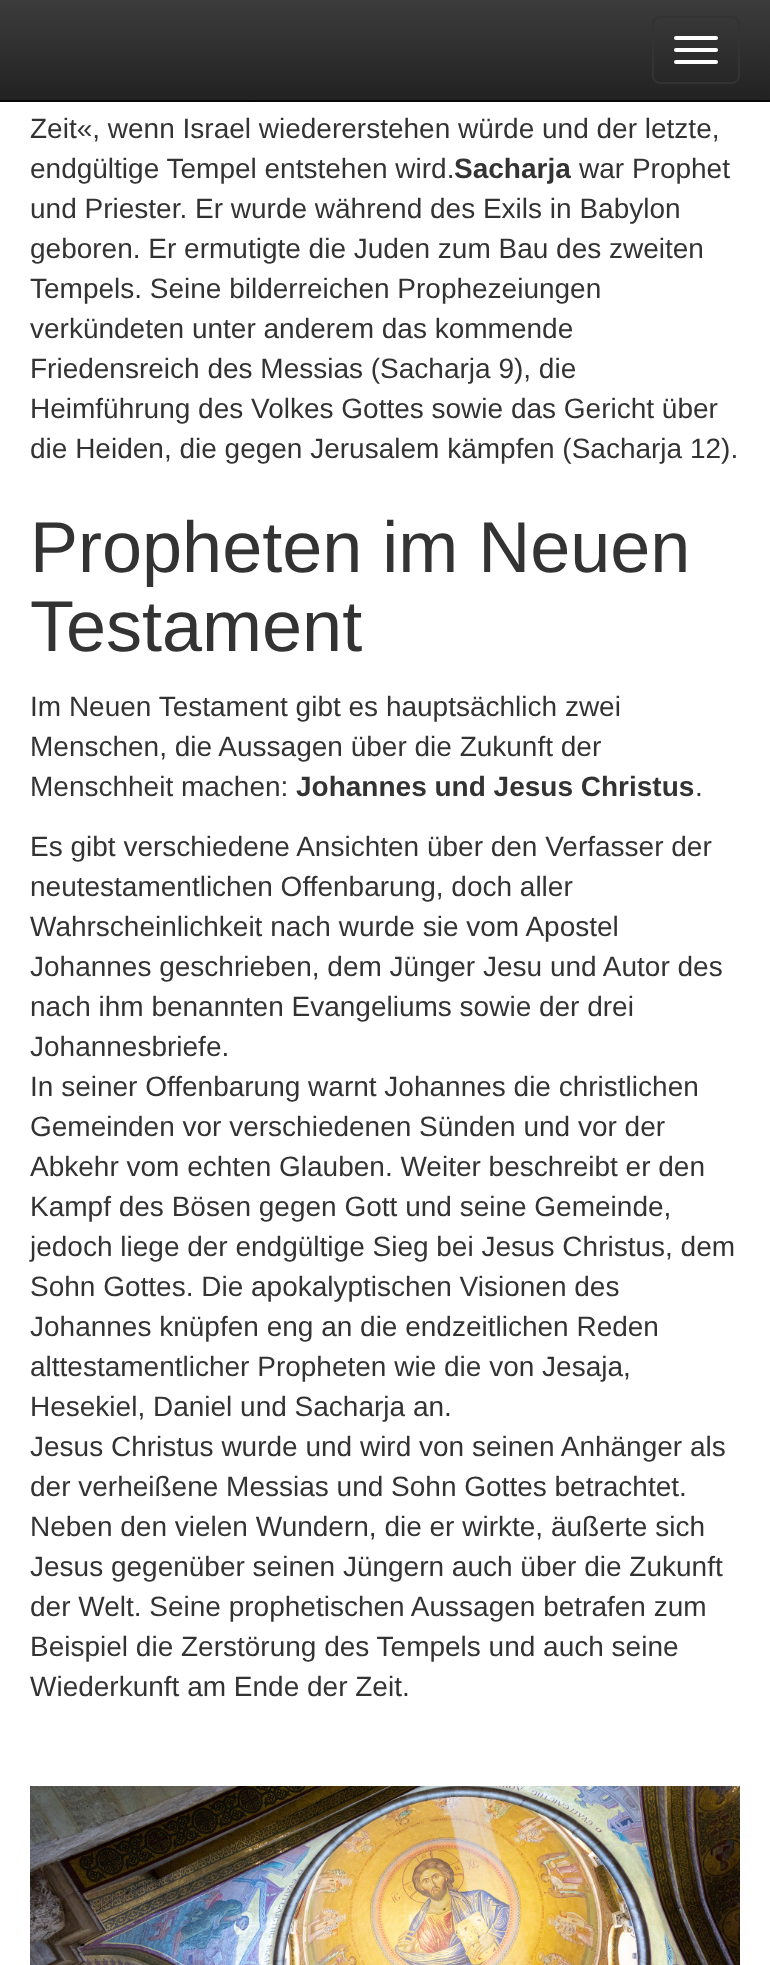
<svg xmlns="http://www.w3.org/2000/svg" width="770" height="1965">
<style>
.a{font:28px Liberation Sans;fill:#333}
.b{font:bold 28px Liberation Sans;fill:#333}
.c{font:72px Liberation Sans;fill:#333}
</style>
<defs>
<linearGradient id="g1" gradientUnits="userSpaceOnUse" x1="385" y1="0" x2="385" y2="100"><stop offset="0" stop-color="#3c3c3c"/><stop offset="1" stop-color="#222"/></linearGradient>
</defs>
<rect width="100%" height="100%" fill="#fff"/>
<path fill="url(#g1)" d="M0 0h770v100H0z"/>
<path fill="#080808" d="M0 100h770v2H0z"/>
<rect fill="none" stroke="#333" stroke-width="2" x="653" y="17" width="86" height="66" rx="7"/>
<rect fill="#fff" x="674" y="36" width="44" height="4" rx="2"/>
<rect fill="#fff" x="674" y="48" width="44" height="4" rx="2"/>
<rect fill="#fff" x="674" y="60" width="44" height="4" rx="2"/>
<image href="1.png" x="30" y="1786" width="710" height="179"/>
<text class="a" x="30" y="138">Zeit«, wenn Israel wiedererstehen würde und der letzte,</text>
<text class="a" x="30" y="178">endgültige Tempel entstehen wird.</text>
<text class="b" x="454" y="178">Sacharja</text>
<text class="a" x="579" y="178">war Prophet</text>
<text class="a" x="30" y="218">und Priester. Er wurde während des Exils in Babylon</text>
<text class="a" x="30" y="258">geboren. Er ermutigte die Juden zum Bau des zweiten</text>
<text class="a" x="30" y="298">Tempels. Seine bilderreichen Prophezeiungen</text>
<text class="a" x="30" y="338">verkündeten unter anderem das kommende</text>
<text class="a" x="30" y="378">Friedensreich des Messias (Sacharja 9), die</text>
<text class="a" x="30" y="418">Heimführung des Volkes Gottes sowie das Gericht über</text>
<text class="a" x="30" y="458">die Heiden, die gegen Jerusalem kämpfen (Sacharja 12).</text>
<text class="c" x="30" y="572">Propheten im Neuen</text>
<text class="c" x="30" y="651">Testament</text>
<text class="a" x="30" y="716">Im Neuen Testament gibt es hauptsächlich zwei</text>
<text class="a" x="30" y="756">Menschen, die Aussagen über die Zukunft der</text>
<text class="a" x="30" y="796">Menschheit machen:</text>
<text class="b" x="296" y="796">Johannes und Jesus Christus</text>
<text class="a" x="695" y="796">.</text>
<text class="a" x="30" y="856">Es gibt verschiedene Ansichten über den Verfasser der</text>
<text class="a" x="30" y="896">neutestamentlichen Offenbarung, doch aller</text>
<text class="a" x="30" y="936">Wahrscheinlichkeit nach wurde sie vom Apostel</text>
<text class="a" x="30" y="976">Johannes geschrieben, dem Jünger Jesu und Autor des</text>
<text class="a" x="30" y="1016">nach ihm benannten Evangeliums sowie der drei</text>
<text class="a" x="30" y="1056">Johannesbriefe.</text>
<text class="a" x="30" y="1096">In seiner Offenbarung warnt Johannes die christlichen</text>
<text class="a" x="30" y="1136">Gemeinden vor verschiedenen Sünden und vor der</text>
<text class="a" x="30" y="1176">Abkehr vom echten Glauben. Weiter beschreibt er den</text>
<text class="a" x="30" y="1216">Kampf des Bösen gegen Gott und seine Gemeinde,</text>
<text class="a" x="30" y="1256">jedoch liege der endgültige Sieg bei Jesus Christus, dem</text>
<text class="a" x="30" y="1296">Sohn Gottes. Die apokalyptischen Visionen des</text>
<text class="a" x="30" y="1336">Johannes knüpfen eng an die endzeitlichen Reden</text>
<text class="a" x="30" y="1376">alttestamentlicher Propheten wie die von Jesaja,</text>
<text class="a" x="30" y="1416">Hesekiel, Daniel und Sacharja an.</text>
<text class="a" x="30" y="1456">Jesus Christus wurde und wird von seinen Anhänger als</text>
<text class="a" x="30" y="1496">der verheißene Messias und Sohn Gottes betrachtet.</text>
<text class="a" x="30" y="1536">Neben den vielen Wundern, die er wirkte, äußerte sich</text>
<text class="a" x="30" y="1576">Jesus gegenüber seinen Jüngern auch über die Zukunft</text>
<text class="a" x="30" y="1616">der Welt. Seine prophetischen Aussagen betrafen zum</text>
<text class="a" x="30" y="1656">Beispiel die Zerstörung des Tempels und auch seine</text>
<text class="a" x="30" y="1696">Wiederkunft am Ende der Zeit.</text>
</svg>
